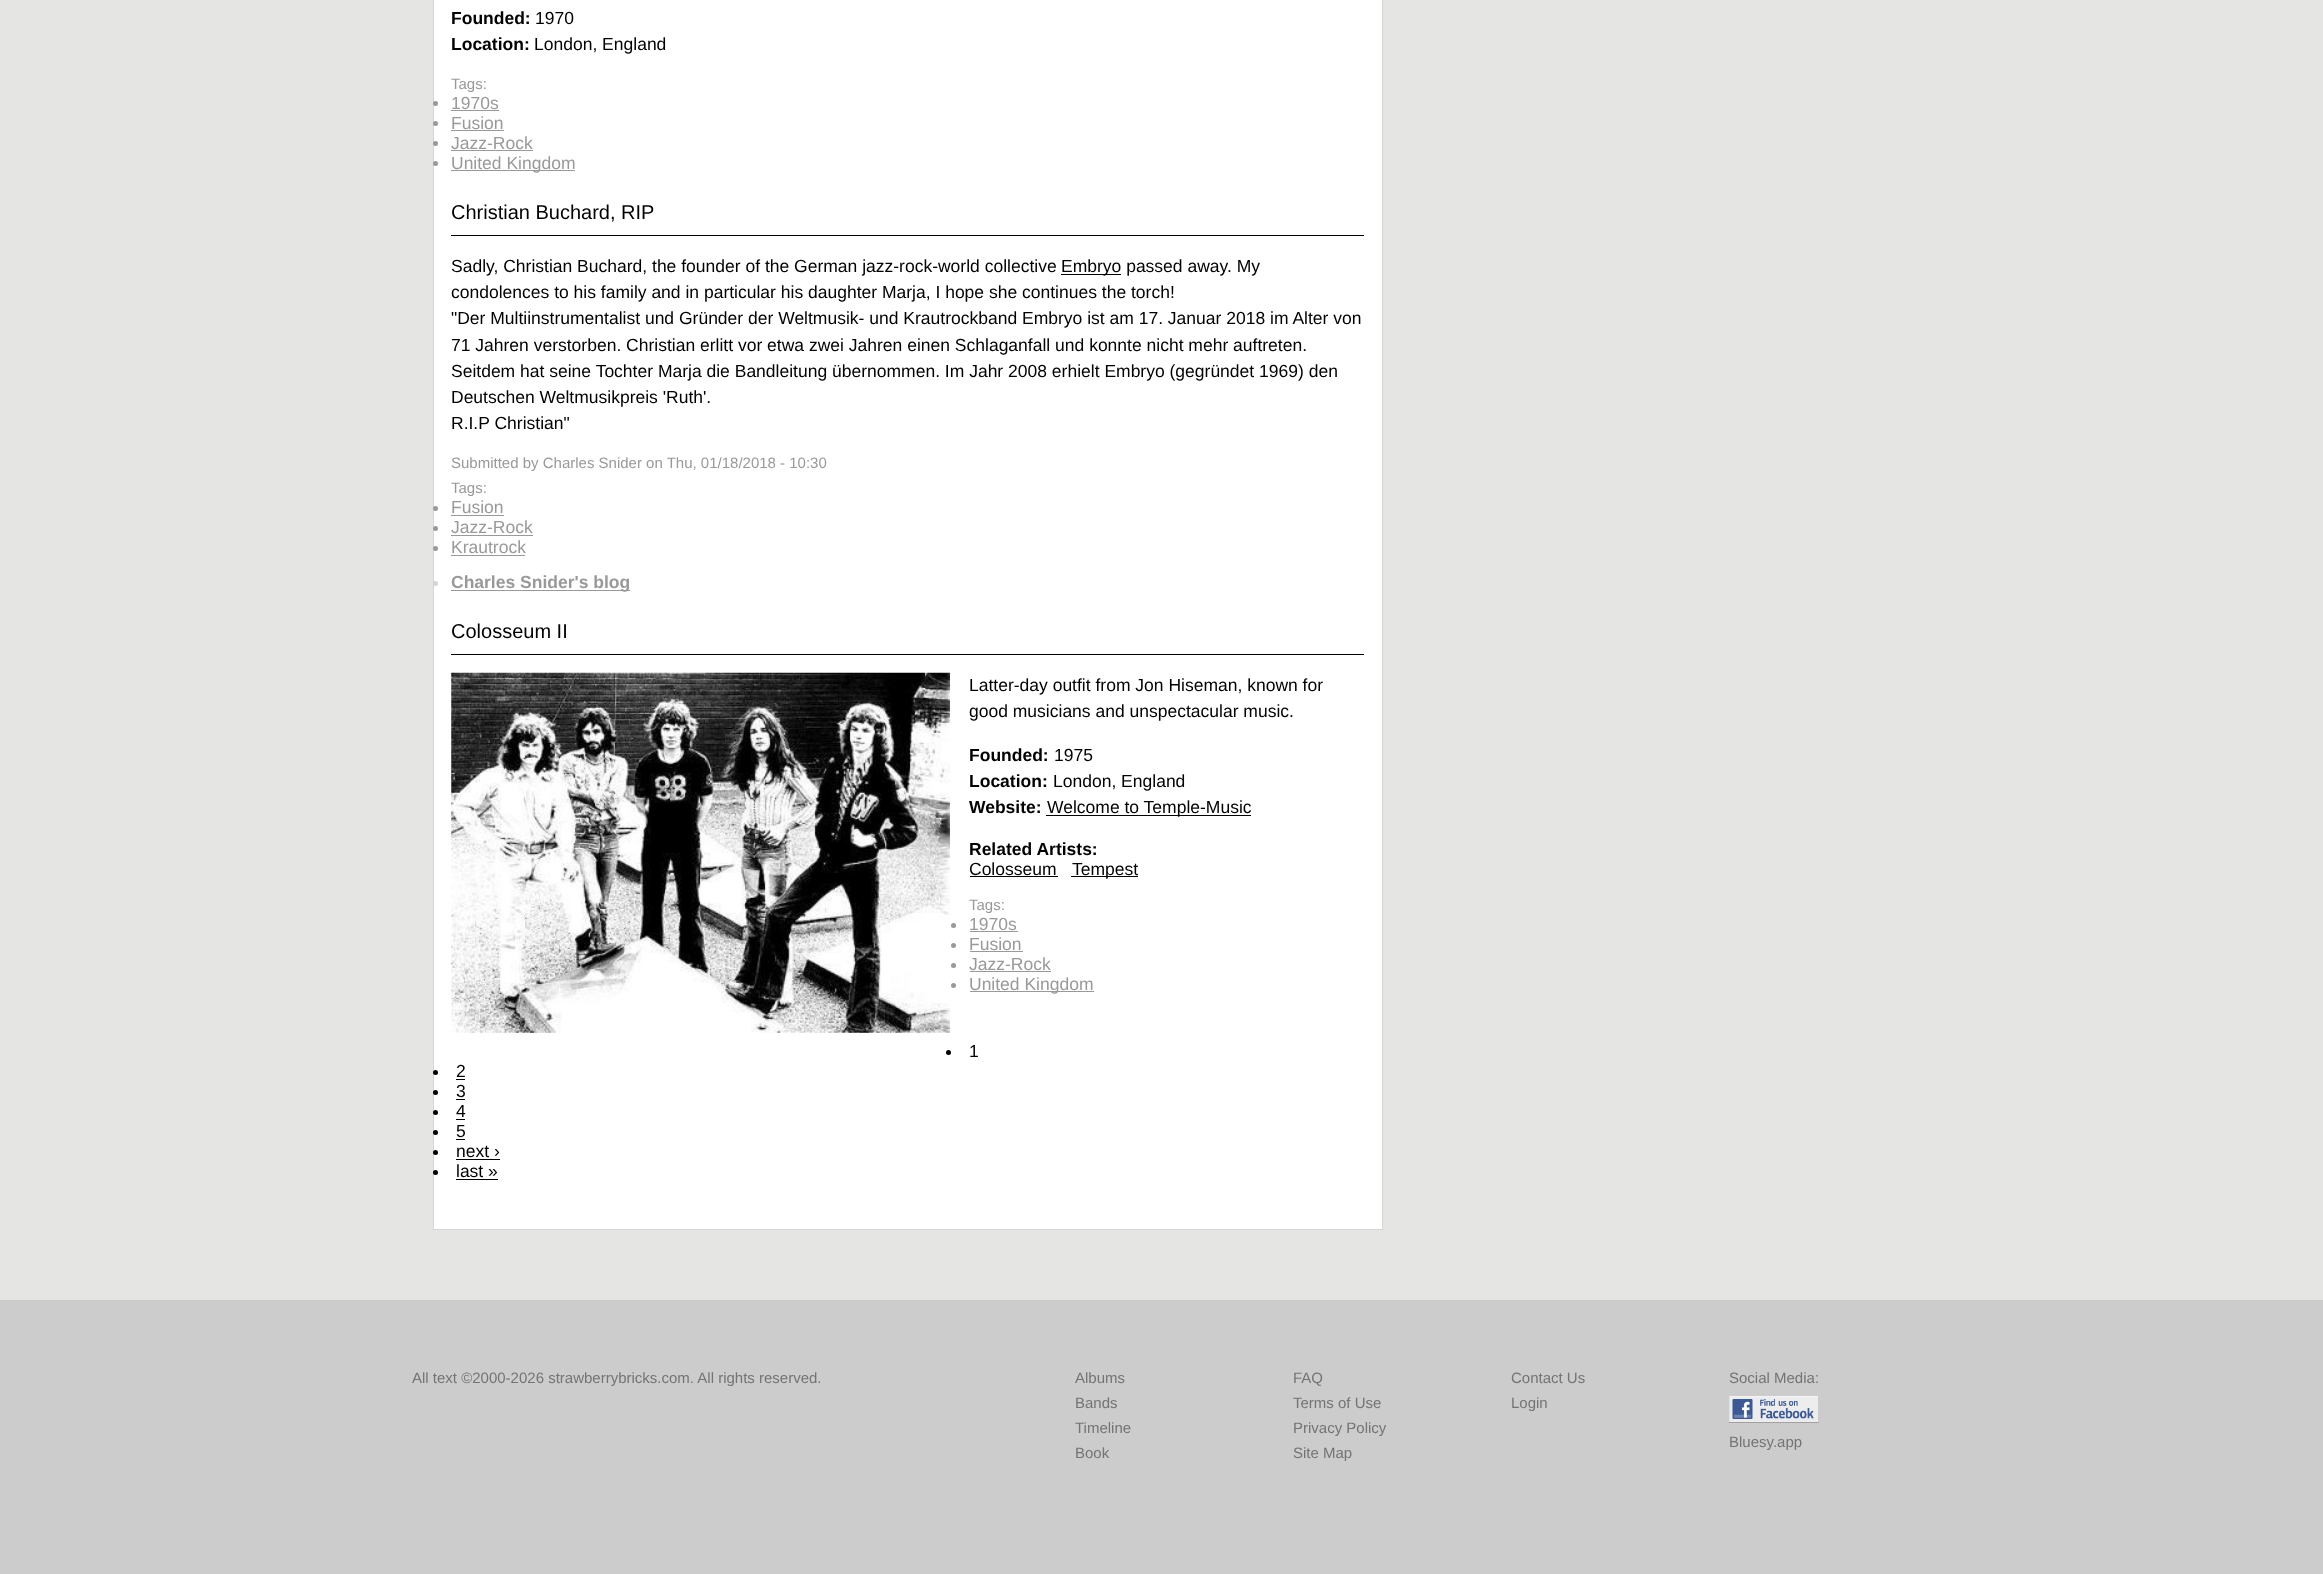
<svg xmlns="http://www.w3.org/2000/svg" width="2323" height="1574">
<style>
.a{font:bold 17.5px Liberation Sans;fill:#000}
.b{font:17.5px Liberation Sans;fill:#000}
.c{font:15px Liberation Sans;fill:#999}
.d{font:17.5px Liberation Sans;fill:#999}
.e{font:20px Liberation Sans;fill:#000}
.f{font:bold 17.5px Liberation Sans;fill:#999}
.g{font:15px Liberation Sans;fill:#757474}
</style>
<rect width="100%" height="100%" fill="#ccc"/>
<path fill="#e5e5e4" d="M0 0h2323v1300H0z"/>
<path fill="#fff" stroke="#d5d5d4" d="M433.5 -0.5h949v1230H433.5z"/>
<circle fill="#999" cx="435.5" cy="103.5" r="2.5"/>
<path fill="#999" d="M451 110h48v1H451z"/>
<circle fill="#999" cx="435.5" cy="123.5" r="2.5"/>
<path fill="#999" d="M451 130h53v1H451z"/>
<circle fill="#999" cx="435.5" cy="143.5" r="2.5"/>
<path fill="#999" d="M451 150h82v1H451z"/>
<circle fill="#999" cx="435.5" cy="163.5" r="2.5"/>
<path fill="#999" d="M451 170h124v1H451z"/>
<path fill="#000" d="M451 235h913v1H451z"/>
<path fill="#000" d="M1061 274h60v1H1061z"/>
<circle fill="#999" cx="435.5" cy="508.5" r="2.5"/>
<path fill="#999" d="M451 515h53v1H451z"/>
<circle fill="#999" cx="435.5" cy="528.5" r="2.5"/>
<path fill="#999" d="M451 535h82v1H451z"/>
<circle fill="#999" cx="435.5" cy="548.5" r="2.5"/>
<path fill="#999" d="M451 555h74v1H451z"/>
<circle fill="#d5d5d4" cx="435.5" cy="583.5" r="2.5"/>
<path fill="#999" d="M451 590h179v1H451z"/>
<path fill="#000" d="M451 654h913v1H451z"/>
<image href="1.png" x="451" y="672" width="499" height="361"/>
<path fill="#000" d="M1046 815h205v1H1046z"/>
<path fill="#000" d="M970 876h88v1H970z"/>
<path fill="#000" d="M1071 876h67v1H1071z"/>
<circle fill="#999" cx="953.5" cy="925.5" r="2.5"/>
<path fill="#999" d="M970 931h48v1H970z"/>
<circle fill="#999" cx="953.5" cy="945.5" r="2.5"/>
<path fill="#999" d="M970 951h53v1H970z"/>
<circle fill="#999" cx="953.5" cy="965.5" r="2.5"/>
<path fill="#999" d="M970 971h81v1H970z"/>
<circle fill="#999" cx="953.5" cy="985.5" r="2.5"/>
<path fill="#999" d="M970 991h124v1H970z"/>
<circle fill="#000" cx="948.5" cy="1052.5" r="2.5"/>
<circle fill="#000" cx="435.5" cy="1072.5" r="2.5"/>
<path fill="#000" d="M456 1079h9v1H456z"/>
<circle fill="#000" cx="435.5" cy="1092.5" r="2.5"/>
<path fill="#000" d="M456 1099h9v1H456z"/>
<circle fill="#000" cx="435.5" cy="1112.5" r="2.5"/>
<path fill="#000" d="M456 1119h9v1H456z"/>
<circle fill="#000" cx="435.5" cy="1132.5" r="2.5"/>
<path fill="#000" d="M456 1139h9v1H456z"/>
<circle fill="#000" cx="435.5" cy="1152.5" r="2.5"/>
<path fill="#000" d="M456 1159h44v1H456z"/>
<circle fill="#000" cx="435.5" cy="1172.5" r="2.5"/>
<path fill="#000" d="M456 1179h42v1H456z"/>
<image href="2.png" x="1728" y="1396" width="91" height="27"/>
<text class="a" x="451" y="24">Founded:</text>
<text class="b" x="535" y="24">1970</text>
<text class="a" x="451" y="50">Location:</text>
<text class="b" x="534" y="50">London, England</text>
<text class="c" x="451" y="89">Tags:</text>
<text class="d" x="451" y="109">1970s</text>
<text class="d" x="451" y="129">Fusion</text>
<text class="d" x="451" y="149">Jazz-Rock</text>
<text class="d" x="451" y="169">United Kingdom</text>
<text class="e" x="451" y="219">Christian Buchard, RIP</text>
<text class="b" x="451" y="272">Sadly, Christian Buchard, the founder of the German jazz-rock-world collective</text>
<text class="b" x="1061" y="272">Embryo passed away. My</text>
<text class="b" x="451" y="298">condolences to his family and in particular his daughter Marja, I hope she continues the torch!</text>
<text class="b" x="451" y="324">"Der Multiinstrumentalist und Gründer der Weltmusik- und Krautrockband Embryo ist am 17. Januar 2018 im Alter von</text>
<text class="b" x="451" y="351">71 Jahren verstorben. Christian erlitt vor etwa zwei Jahren einen Schlaganfall und konnte nicht mehr auftreten.</text>
<text class="b" x="451" y="377">Seitdem hat seine Tochter Marja die Bandleitung übernommen. Im Jahr 2008 erhielt Embryo (gegründet 1969) den</text>
<text class="b" x="451" y="403">Deutschen Weltmusikpreis 'Ruth'.</text>
<text class="b" x="451" y="429">R.I.P Christian"</text>
<text class="c" x="451" y="468">Submitted by Charles Snider on Thu, 01/18/2018 - 10:30</text>
<text class="c" x="451" y="493">Tags:</text>
<text class="d" x="451" y="513">Fusion</text>
<text class="d" x="451" y="533">Jazz-Rock</text>
<text class="d" x="451" y="553">Krautrock</text>
<text class="f" x="451" y="588">Charles Snider's blog</text>
<text class="e" x="451" y="638">Colosseum II</text>
<text class="b" x="969" y="691">Latter-day outfit from Jon Hiseman, known for</text>
<text class="b" x="969" y="717">good musicians and unspectacular music.</text>
<text class="a" x="969" y="761">Founded:</text>
<text class="b" x="1054" y="761">1975</text>
<text class="a" x="969" y="787">Location:</text>
<text class="b" x="1053" y="787">London, England</text>
<text class="a" x="969" y="813">Website:</text>
<text class="b" x="1047" y="813">Welcome to Temple-Music</text>
<text class="a" x="969" y="855">Related Artists:</text>
<text class="b" x="969" y="875">Colosseum</text>
<text class="b" x="1072" y="875">Tempest</text>
<text class="c" x="969" y="910">Tags:</text>
<text class="d" x="969" y="930">1970s</text>
<text class="d" x="969" y="950">Fusion</text>
<text class="d" x="969" y="970">Jazz-Rock</text>
<text class="d" x="969" y="990">United Kingdom</text>
<text class="b" x="969" y="1057">1</text>
<text class="b" x="456" y="1077">2</text>
<text class="b" x="456" y="1097">3</text>
<text class="b" x="456" y="1117">4</text>
<text class="b" x="456" y="1137">5</text>
<text class="b" x="456" y="1157">next ›</text>
<text class="b" x="456" y="1177">last »</text>
<text class="g" x="412" y="1383">All text ©2000-2026 strawberrybricks.com. All rights reserved.</text>
<text class="g" x="1075" y="1383">Albums</text>
<text class="g" x="1075" y="1408">Bands</text>
<text class="g" x="1075" y="1433">Timeline</text>
<text class="g" x="1075" y="1458">Book</text>
<text class="g" x="1293" y="1383">FAQ</text>
<text class="g" x="1293" y="1408">Terms of Use</text>
<text class="g" x="1293" y="1433">Privacy Policy</text>
<text class="g" x="1293" y="1458">Site Map</text>
<text class="g" x="1511" y="1383">Contact Us</text>
<text class="g" x="1511" y="1408">Login</text>
<text class="g" x="1729" y="1383">Social Media:</text>
<text class="g" x="1729" y="1447">Bluesy.app</text>
</svg>
